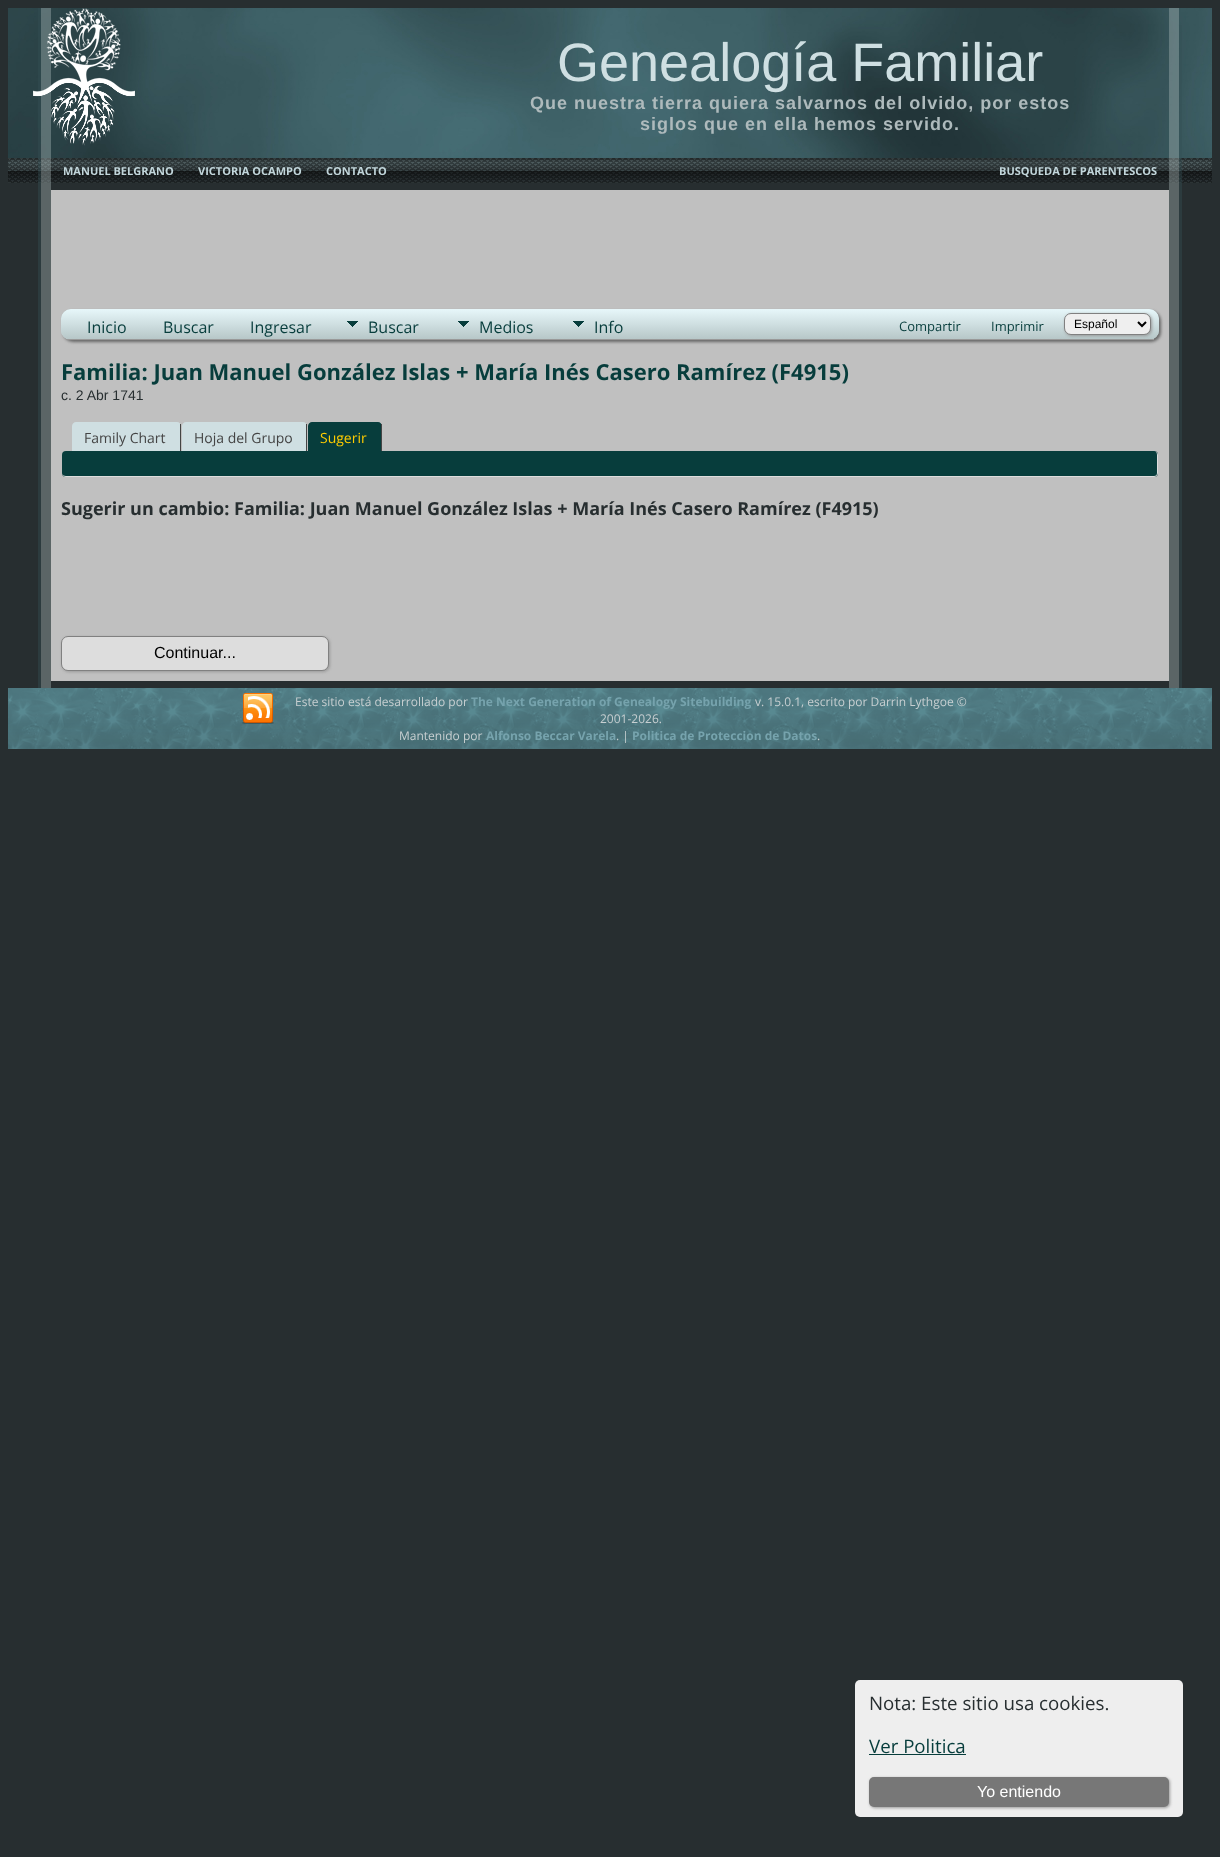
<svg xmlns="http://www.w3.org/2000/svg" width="1220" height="1857">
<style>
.a{font:54px Liberation Sans;fill:#cfdfe2}
.b{font:bold 18px Liberation Sans;letter-spacing:1px;fill:#aebabc}
.c{font:bold 11px Open Sans;fill:#c2d6db}
.d{font:16px Open Sans;fill:#073d3c}
.e{font:13px Open Sans;fill:#073d3c}
.f{font:12px Liberation Sans;fill:#000}
.g{font:bold 22px Open Sans;fill:#073d3c}
.h{font:14px Liberation Sans;fill:#272e30}
.i{font:14px Open Sans;fill:#444}
.j{font:14px Open Sans;fill:#fc0}
.k{font:bold 18px Open Sans;fill:#272e30}
.l{font:16px Liberation Sans;fill:#000}
.m{font:18.7px Open Sans;fill:#272e30}
.n{font:18.7px Open Sans;fill:#073d3c}
.o{font:16px Liberation Sans;fill:#fff}
.p{font:12px Open Sans;fill:#c7cfd1}
.q{font:bold 12px Open Sans;fill:#76a3ad}
</style>
<defs>
<clipPath id="clip1"><rect x="61" y="309" width="1098" height="31" rx="10"/></clipPath>
<linearGradient id="g1" gradientUnits="userSpaceOnUse" x1="610" y1="309" x2="610" y2="339"><stop offset="0" stop-color="#e7f7fa"/><stop offset="1" stop-color="#b7c7c8"/></linearGradient>
</defs>
<rect width="100%" height="100%" fill="#272e30"/>
<image href="1.png" x="8" y="8" width="1204" height="150"/>
<image href="2.png" x="38" y="8" width="13" height="17"/>
<path fill="#aab9b966" d="M1169 8h10v17H1169z"/>
<image href="13.png" x="8" y="158" width="1204" height="25"/>
<image href="3.png" x="38" y="25" width="13" height="646"/>
<image href="5.png" x="51" y="8" width="1118" height="150"/>
<image href="4.png" x="33" y="8" width="102" height="138"/>
<image href="6.png" x="51" y="158" width="1118" height="25"/>
<path fill="#c0c0c0" d="M51 190h1118v491H51z"/>
<rect fill="#666" filter="blur(1.5px)" x="63" y="311" width="1098" height="31" rx="10"/>
<rect fill="#cfdfe2" x="61" y="309" width="1098" height="31" rx="10"/>
<g clip-path="url(#clip1)">
<path fill="url(#g1)" d="M71 309h1078c5.5 0 10 4.5 10 10v20h-1098v-20c0-5.5 4.5-10 10-10z"/>
</g>
<path fill="#999" d="M66 339h1088v1H66z"/>
<image href="7.png" x="338" y="309" width="111" height="30"/>
<image href="8.png" x="449" y="309" width="115" height="30"/>
<image href="9.png" x="564" y="309" width="89" height="30"/>
<rect fill="#999" filter="blur(1.5px)" x="1065" y="314" width="87" height="22" rx="7"/>
<rect fill="#efefef" stroke="#808080" x="1064.5" y="313.5" width="86" height="21" rx="6.5"/>
<path fill="none" stroke="#000" stroke-width="2" d="M1138 322l4 4l4-4"/>
<path fill="#cfdfe2" d="M76 422h101c2 0 4 2 4 4v25h-109v-25c0-2 2-4 4-4z"/>
<path fill="#444" d="M180 424h1v27H180z"/>
<path fill="#cfdfe2" d="M186 422h117c2 0 4 2 4 4v25h-125v-25c0-2 2-4 4-4z"/>
<path fill="#444" d="M306 424h1v27H306z"/>
<path fill="#073d3c" d="M312 422h66c2 0 4 2 4 4v25h-74v-25c0-2 2-4 4-4z"/>
<path fill="#444" d="M381 424h1v27H381z"/>
<rect fill="#073d3c" x="62" y="451" width="1096" height="26" rx="4"/>
<path fill="#ddd" fill-rule="evenodd" d="M66 451h1088c2 0 4 2 4 4v18c0 2-2 4-4 4h-1088c-2 0-4-2-4-4v-18c0-2 2-4 4-4zm0 0h1088c2 0 3 2 3 4v18c0 2-1 3-3 3h-1088c-2 0-4-1-4-3v-18c0-2 2-4 4-4z"/>
<rect fill="#999" filter="blur(1.5px)" x="62" y="637" width="268" height="35" rx="7"/>
<rect fill="#ddd" stroke="#808080" x="61.5" y="636.5" width="267" height="34" rx="6.5"/>
<rect fill="#eee" x="855" y="1680" width="328" height="137" rx="5"/>
<path fill="#073d3c" d="M869 1754h97v1H869z"/>
<rect fill="#999" filter="blur(1.5px)" x="870" y="1778" width="300" height="30" rx="5"/>
<rect fill="#777" x="869" y="1777" width="300" height="30" rx="5"/>
<image href="10.png" x="1169" y="25" width="13" height="646"/>
<image href="11.png" x="38" y="671" width="13" height="17"/>
<image href="12.png" x="1169" y="671" width="13" height="17"/>
<image href="14.png" x="8" y="688" width="1204" height="11"/>
<image href="16.png" x="8" y="699" width="1204" height="50"/>
<image href="15.png" x="242" y="693" width="32" height="31"/>
<text class="a" x="557" y="81">Genealogía Familiar</text>
<text class="b" x="530" y="109">Que nuestra tierra quiera salvarnos del olvido, por estos</text>
<text class="b" x="640" y="130">siglos que en ella hemos servido.</text>
<text class="c" x="63" y="175">MANUEL BELGRANO</text>
<text class="c" x="198" y="175">VICTORIA OCAMPO</text>
<text class="c" x="326" y="175">CONTACTO</text>
<text class="c" x="999" y="175">BUSQUEDA DE PARENTESCOS</text>
<text class="d" x="87" y="333">Inicio</text>
<text class="d" x="163" y="333">Buscar</text>
<text class="d" x="250" y="333">Ingresar</text>
<text class="d" x="368" y="333">Buscar</text>
<text class="d" x="479" y="333">Medios</text>
<text class="d" x="594" y="333">Info</text>
<text class="e" x="899" y="331">Compartir</text>
<text class="e" x="991" y="331">Imprimir</text>
<text class="f" x="1074" y="328">Español</text>
<text class="g" x="61" y="380">Familia: Juan Manuel González Islas + María Inés Casero Ramírez (F4915)</text>
<text class="h" x="61" y="400">c. 2 Abr 1741</text>
<text class="i" x="84" y="443">Family Chart</text>
<text class="i" x="194" y="443">Hoja del Grupo</text>
<text class="j" x="320" y="443">Sugerir</text>
<text class="k" x="61" y="515">Sugerir un cambio: Familia: Juan Manuel González Islas + María Inés Casero Ramírez (F4915)</text>
<text class="l" x="154" y="658">Continuar...</text>
<text class="m" x="869" y="1710">Nota: Este sitio usa cookies.</text>
<text class="n" x="869" y="1753">Ver Politica</text>
<text class="o" x="977" y="1797">Yo entiendo</text>
<text class="p" x="295" y="706">Este sitio está desarrollado por</text>
<text class="q" x="471" y="706">The Next Generation of Genealogy Sitebuilding</text>
<text class="p" x="755" y="706">v. 15.0.1, escrito por Darrin Lythgoe ©</text>
<text class="p" x="600" y="723">2001-2026.</text>
<text class="p" x="399" y="740">Mantenido por</text>
<text class="q" x="486" y="740">Alfonso Beccar Varela</text>
<text class="p" x="616" y="740">. |</text>
<text class="q" x="632" y="740">Politica de Proteccion de Datos</text>
<text class="p" x="817" y="740">.</text>
</svg>
